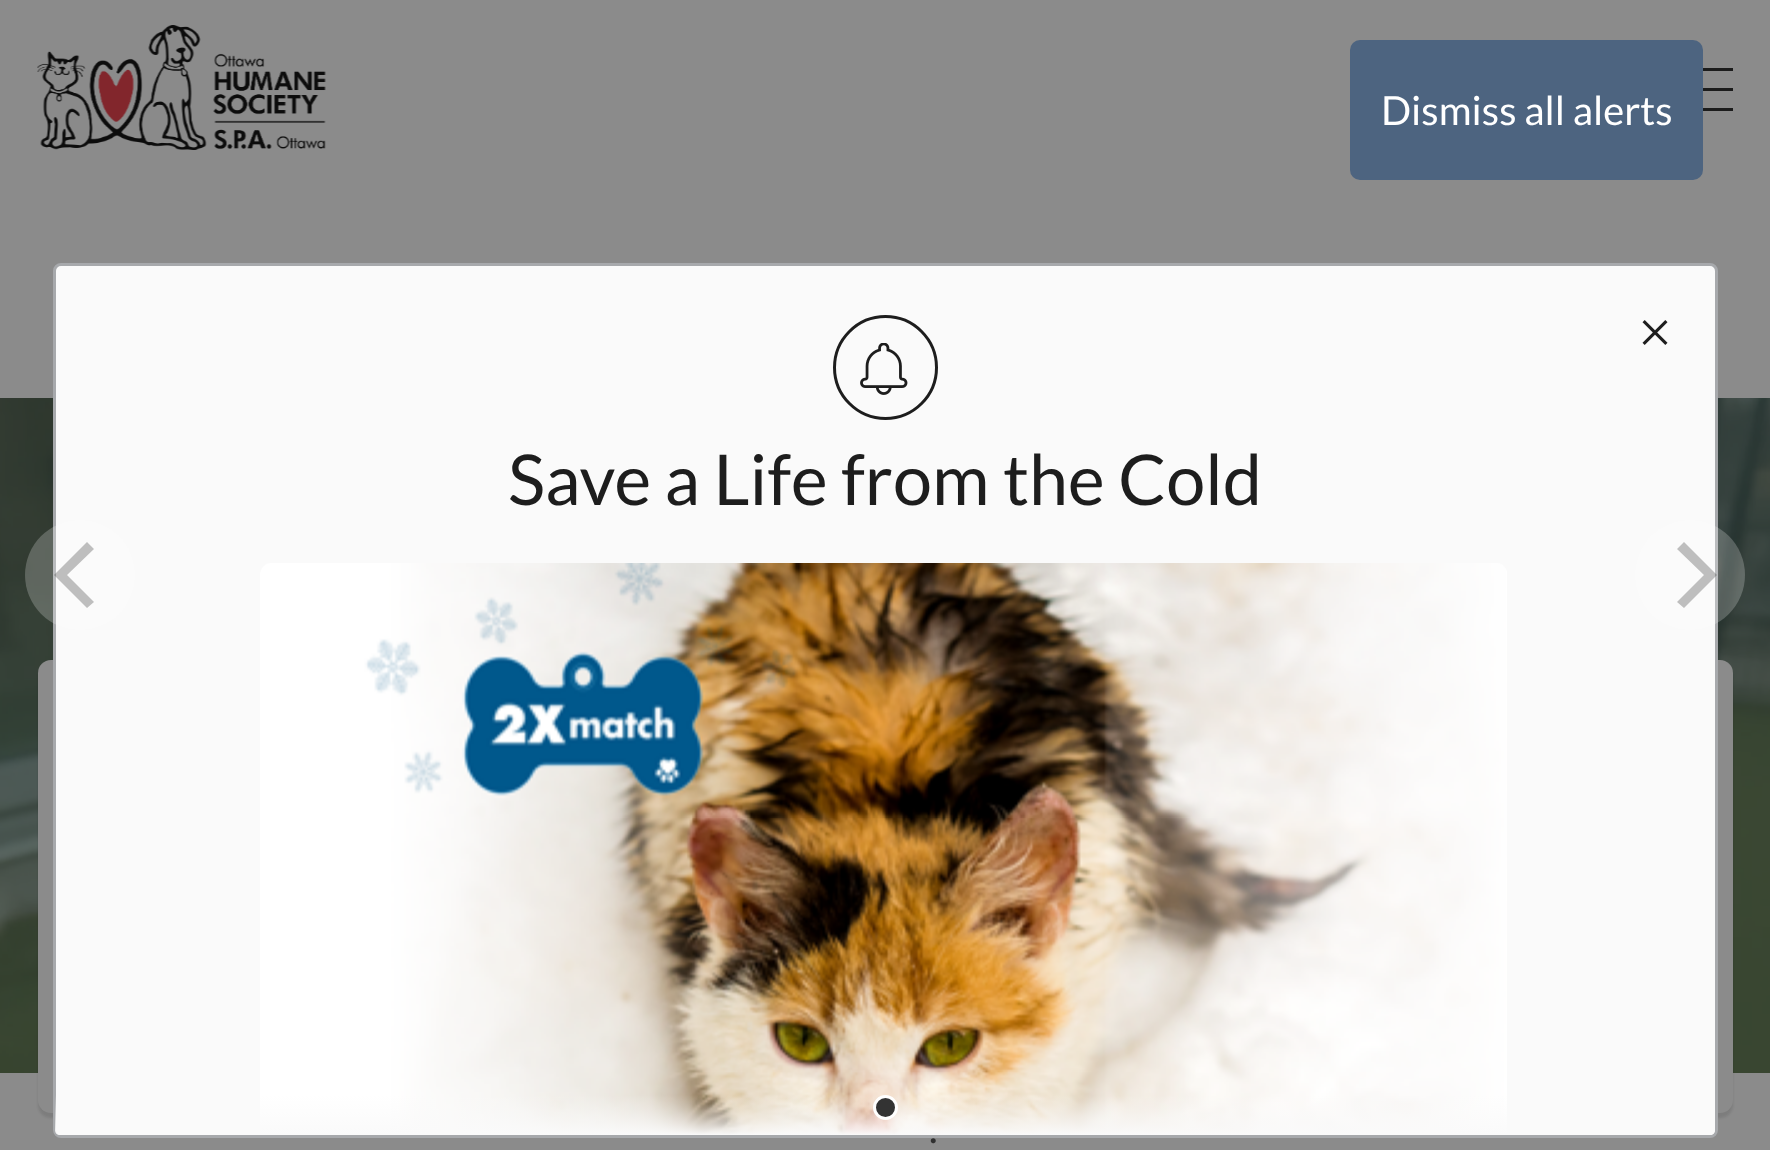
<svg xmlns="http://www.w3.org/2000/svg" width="1770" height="1150">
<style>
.a{font:40px Lato;fill:#fff}
.b{font:70px Lato;fill:#1d1d1d}
.c{font:40px Lato;fill:#303030}
</style>
<defs>
<linearGradient id="g1" gradientUnits="userSpaceOnUse" x1="885" y1="1095" x2="885" y2="1135"><stop offset="0" stop-color="#fafafa" stop-opacity="0"/><stop offset="1" stop-color="#fafafa"/></linearGradient>
</defs>
<rect width="100%" height="100%" fill="#8b8b8b"/>
<rect fill="#4d6480" x="1350" y="40" width="353" height="140" rx="10"/>
<image href="5.png" x="0" y="398" width="1770" height="675"/>
<rect fill="#0b0b0b1a" filter="blur(1px)" x="38" y="665" width="1695" height="453" rx="13"/>
<rect fill="#8b8b8b" x="38" y="660" width="1695" height="453" rx="13"/>
<rect fill="#fafafa" stroke="#a7a9ac" stroke-width="3" x="54.5" y="264.5" width="1662" height="872" rx="6.5"/>
<image href="1.png" x="860" y="343" width="48" height="52"/>
<circle fill="none" stroke="#1d1d1d" stroke-width="3" cx="885.5" cy="367.5" r="51"/>
<image href="2.png" x="1642" y="320" width="26" height="25"/>
<image href="3.png" x="260" y="563" width="1247" height="572"/>
<path fill="url(#g1)" d="M55 1095h1660v35c0 3-2 5-5 5h-1650c-3 0-5-2-5-5z"/>
<circle fill="#ffffff38" cx="80" cy="575" r="55"/>
<path fill="#3333334d" d="M54 575l33 33l7-6l-27-27l27-26l-7-7z"/>
<circle fill="#ffffff38" cx="1690" cy="575" r="55"/>
<path fill="#3333334d" d="M1717 575l-33-33l-7 7l27 26l-27 27l7 6z"/>
<circle fill="#333" stroke="#fff" stroke-width="3" cx="885.5" cy="1107.5" r="11"/>
<image href="4.png" x="37" y="25" width="289" height="125"/>
<path fill="#1c1c1c" d="M1703 88h30v3H1703z"/>
<path fill="#1c1c1c" d="M1703 68h30v3H1703z"/>
<path fill="#1c1c1c" d="M1703 108h30v3H1703z"/>
<text class="a" x="1381" y="125">Dismiss all alerts</text>
<text class="b" x="508" y="505">Save a Life from the Cold</text>
<text class="c" x="929" y="1143">.</text>
</svg>
